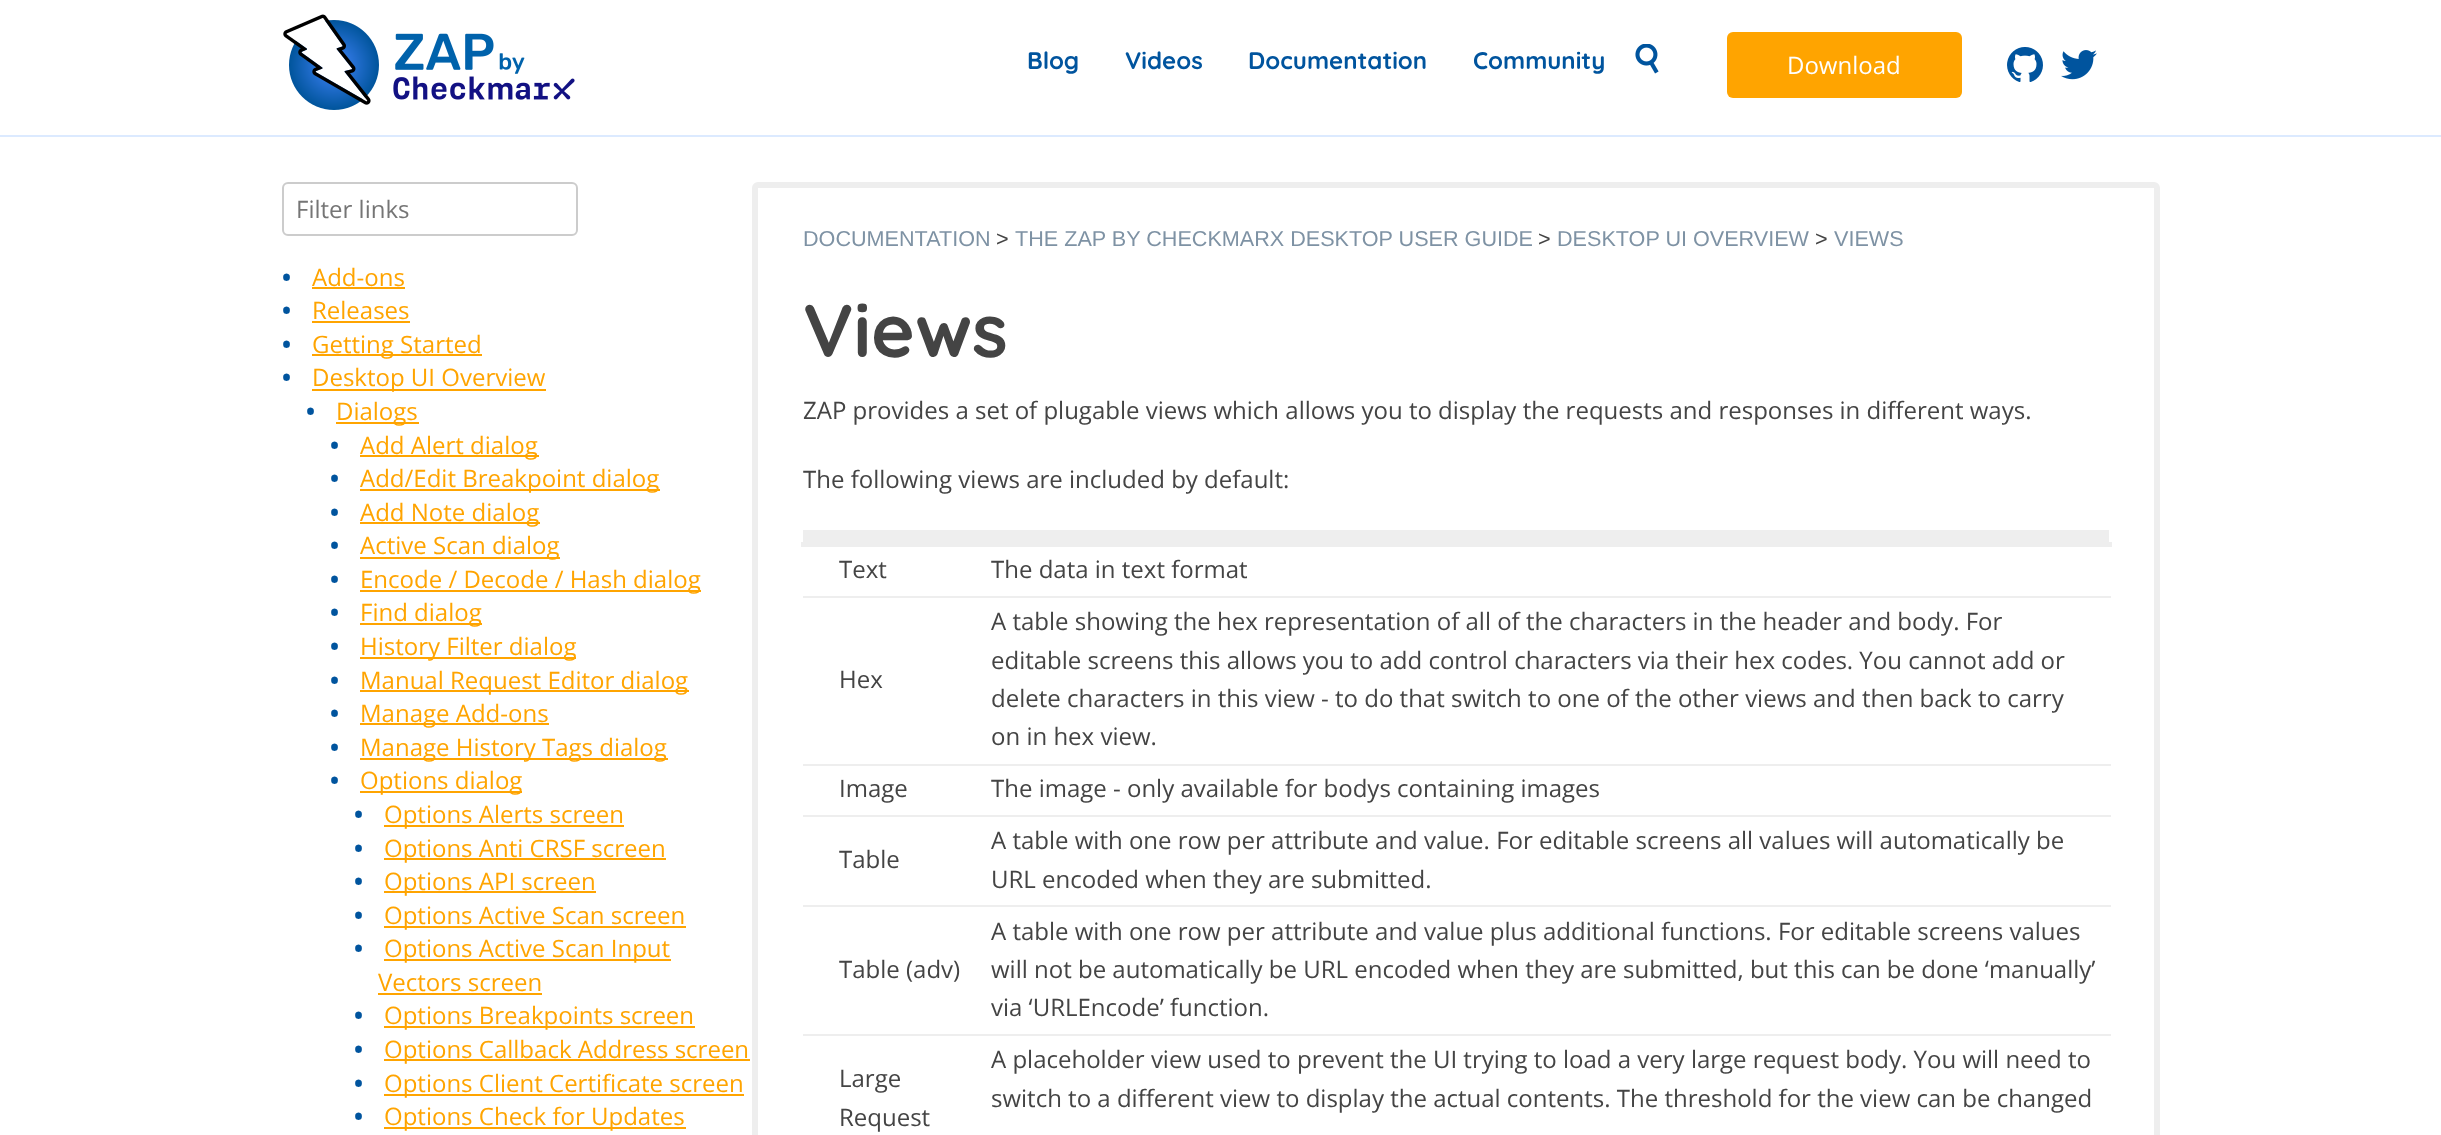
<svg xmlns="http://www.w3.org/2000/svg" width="2441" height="1135">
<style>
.a{font:bold 24px Quicksand;fill:#00549e}
.b{font:24px Open Sans;fill:#fff}
.c{font:24px Open Sans;fill:#757575}
.d{font:bold 24px Open Sans;fill:#00549e}
.e{font:24px Open Sans;fill:#ffa400}
.f{font:21.6px Liberation Sans;fill:#7e92a4}
.g{font:21.6px Liberation Sans;fill:#444}
.h{font:bold 74.5px Quicksand;fill:#444}
.i{font:24px Open Sans;fill:#444}
</style>
<rect width="100%" height="100%" fill="#fff"/>
<path fill="#dceaff" d="M0 135h2441v2H0z"/>
<image href="1.png" x="283" y="14" width="292" height="96"/>
<image href="2.png" x="1635" y="44" width="24" height="30"/>
<rect fill="#ffa400" x="1727" y="32" width="235" height="66" rx="6"/>
<image href="3.png" x="2007" y="47" width="36" height="35"/>
<image href="4.png" x="2061" y="50" width="36" height="30"/>
<rect fill="none" stroke="#ccc" stroke-width="2" x="283" y="183" width="294" height="52" rx="5"/>
<path fill="#ffa400" d="M312 287h93v2H312z"/>
<path fill="#ffa400" d="M312 321h98v2H312z"/>
<path fill="#ffa400" d="M312 354h170v2H312z"/>
<path fill="#ffa400" d="M312 389h234v2H312z"/>
<path fill="#ffa400" d="M336 422h83v2H336z"/>
<path fill="#ffa400" d="M360 455h179v2H360z"/>
<path fill="#ffa400" d="M360 489h300v2H360z"/>
<path fill="#ffa400" d="M360 522h180v2H360z"/>
<path fill="#ffa400" d="M360 557h200v2H360z"/>
<path fill="#ffa400" d="M360 590h341v2H360z"/>
<path fill="#ffa400" d="M360 623h122v2H360z"/>
<path fill="#ffa400" d="M360 657h216v2H360z"/>
<path fill="#ffa400" d="M360 690h329v2H360z"/>
<path fill="#ffa400" d="M360 723h189v2H360z"/>
<path fill="#ffa400" d="M360 758h308v2H360z"/>
<path fill="#ffa400" d="M360 791h162v2H360z"/>
<path fill="#ffa400" d="M384 825h240v2H384z"/>
<path fill="#ffa400" d="M384 858h282v2H384z"/>
<path fill="#ffa400" d="M384 891h212v2H384z"/>
<path fill="#ffa400" d="M384 926h302v2H384z"/>
<path fill="#ffa400" d="M384 959h287v2H384z"/>
<path fill="#ffa400" d="M378 993h164v2H378z"/>
<path fill="#ffa400" d="M384 1026h311v2H384z"/>
<path fill="#ffa400" d="M384 1059h366v2H384z"/>
<path fill="#ffa400" d="M384 1094h360v2H384z"/>
<path fill="#ffa400" d="M384 1127h302v2H384z"/>
<rect fill="none" stroke="#eee" stroke-width="6" x="755" y="185" width="1402" height="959" rx="3"/>
<path fill="#eee" d="M803 530h1306v12H803z"/>
<path fill="#eee" d="M801 542h1311v5H801z"/>
<path fill="#eee" d="M803 596h1308v2H803z"/>
<path fill="#eee" d="M803 764h1308v2H803z"/>
<path fill="#eee" d="M803 815h1308v2H803z"/>
<path fill="#eee" d="M803 905h1308v2H803z"/>
<path fill="#eee" d="M803 1034h1308v2H803z"/>
<text class="a" x="1027" y="69">Blog</text>
<text class="a" x="1125" y="69">Videos</text>
<text class="a" x="1248" y="69">Documentation</text>
<text class="a" x="1473" y="69">Community</text>
<text class="b" x="1787" y="74">Download</text>
<text class="c" x="296" y="218">Filter links</text>
<text class="d" x="282" y="286">•</text>
<text class="e" x="312" y="286">Add-ons</text>
<text class="d" x="282" y="319">•</text>
<text class="e" x="312" y="319">Releases</text>
<text class="d" x="282" y="353">•</text>
<text class="e" x="312" y="353">Getting Started</text>
<text class="d" x="282" y="386">•</text>
<text class="e" x="312" y="386">Desktop UI Overview</text>
<text class="d" x="306" y="420">•</text>
<text class="e" x="336" y="420">Dialogs</text>
<text class="d" x="330" y="454">•</text>
<text class="e" x="360" y="454">Add Alert dialog</text>
<text class="d" x="330" y="487">•</text>
<text class="e" x="360" y="487">Add/Edit Breakpoint dialog</text>
<text class="d" x="330" y="521">•</text>
<text class="e" x="360" y="521">Add Note dialog</text>
<text class="d" x="330" y="554">•</text>
<text class="e" x="360" y="554">Active Scan dialog</text>
<text class="d" x="330" y="588">•</text>
<text class="e" x="360" y="588">Encode / Decode / Hash dialog</text>
<text class="d" x="330" y="621">•</text>
<text class="e" x="360" y="621">Find dialog</text>
<text class="d" x="330" y="655">•</text>
<text class="e" x="360" y="655">History Filter dialog</text>
<text class="d" x="330" y="689">•</text>
<text class="e" x="360" y="689">Manual Request Editor dialog</text>
<text class="d" x="330" y="722">•</text>
<text class="e" x="360" y="722">Manage Add-ons</text>
<text class="d" x="330" y="756">•</text>
<text class="e" x="360" y="756">Manage History Tags dialog</text>
<text class="d" x="330" y="789">•</text>
<text class="e" x="360" y="789">Options dialog</text>
<text class="d" x="354" y="823">•</text>
<text class="e" x="384" y="823">Options Alerts screen</text>
<text class="d" x="354" y="857">•</text>
<text class="e" x="384" y="857">Options Anti CRSF screen</text>
<text class="d" x="354" y="890">•</text>
<text class="e" x="384" y="890">Options API screen</text>
<text class="d" x="354" y="924">•</text>
<text class="e" x="384" y="924">Options Active Scan screen</text>
<text class="d" x="354" y="957">•</text>
<text class="e" x="384" y="957">Options Active Scan Input</text>
<text class="e" x="378" y="991">Vectors screen</text>
<text class="d" x="354" y="1024">•</text>
<text class="e" x="384" y="1024">Options Breakpoints screen</text>
<text class="d" x="354" y="1058">•</text>
<text class="e" x="384" y="1058">Options Callback Address screen</text>
<text class="d" x="354" y="1092">•</text>
<text class="e" x="384" y="1092">Options Client Certificate screen</text>
<text class="d" x="354" y="1125">•</text>
<text class="e" x="384" y="1125">Options Check for Updates</text>
<text class="f" x="803" y="246">DOCUMENTATION</text>
<text class="g" x="996" y="246">&gt;</text>
<text class="f" x="1015" y="246">THE ZAP BY CHECKMARX DESKTOP USER GUIDE</text>
<text class="g" x="1538" y="246">&gt;</text>
<text class="f" x="1557" y="246">DESKTOP UI OVERVIEW</text>
<text class="g" x="1815" y="246">&gt;</text>
<text class="f" x="1834" y="246">VIEWS</text>
<text class="h" x="803" y="357">Views</text>
<text class="i" x="803" y="419">ZAP provides a set of plugable views which allows you to display the requests and responses in different ways.</text>
<text class="i" x="803" y="488">The following views are included by default:</text>
<text class="i" x="839" y="578">Text</text>
<text class="i" x="991" y="578">The data in text format</text>
<text class="i" x="839" y="688">Hex</text>
<text class="i" x="991" y="630">A table showing the hex representation of all of the characters in the header and body. For</text>
<text class="i" x="991" y="669">editable screens this allows you to add control characters via their hex codes. You cannot add or</text>
<text class="i" x="991" y="707">delete characters in this view - to do that switch to one of the other views and then back to carry</text>
<text class="i" x="991" y="745">on in hex view.</text>
<text class="i" x="839" y="797">Image</text>
<text class="i" x="991" y="797">The image - only available for bodys containing images</text>
<text class="i" x="839" y="868">Table</text>
<text class="i" x="991" y="849">A table with one row per attribute and value. For editable screens all values will automatically be</text>
<text class="i" x="991" y="888">URL encoded when they are submitted.</text>
<text class="i" x="839" y="978">Table (adv)</text>
<text class="i" x="991" y="940">A table with one row per attribute and value plus additional functions. For editable screens values</text>
<text class="i" x="991" y="978">will not be automatically be URL encoded when they are submitted, but this can be done ‘manually’</text>
<text class="i" x="991" y="1016">via ‘URLEncode’ function.</text>
<text class="i" x="839" y="1087">Large</text>
<text class="i" x="839" y="1126">Request</text>
<text class="i" x="991" y="1068">A placeholder view used to prevent the UI trying to load a very large request body. You will need to</text>
<text class="i" x="991" y="1107">switch to a different view to display the actual contents. The threshold for the view can be changed</text>
</svg>
